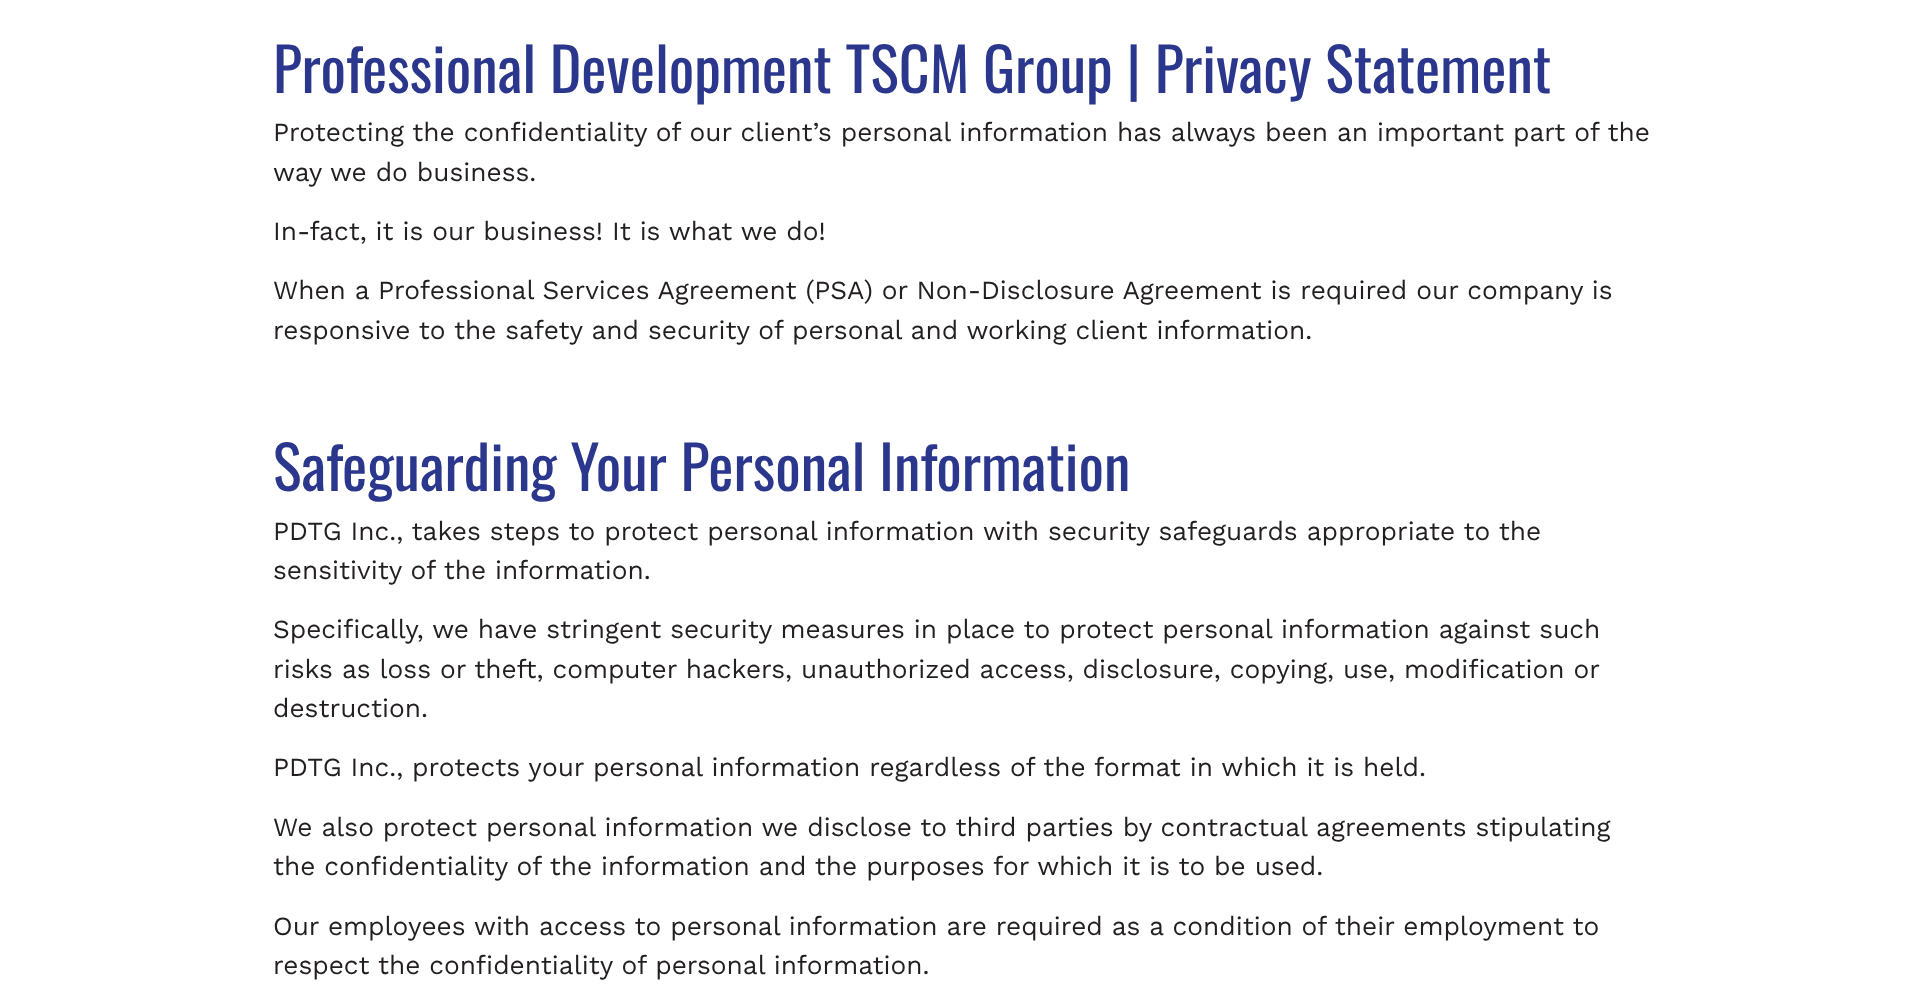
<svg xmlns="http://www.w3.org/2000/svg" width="1932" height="991">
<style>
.a{font:60px Oswald;fill:#2b378d}
.b{font:26.25px Work Sans;fill:#231f20}
</style>
<rect width="100%" height="100%" fill="#fff"/>
<text class="a" x="273" y="93">Professional Development TSCM Group | Privacy Statement</text>
<text class="b" x="273" y="141">Protecting the confidentiality of our client’s personal information has always been an important part of the</text>
<text class="b" x="273" y="181">way we do business.</text>
<text class="b" x="273" y="240">In-fact, it is our business! It is what we do!</text>
<text class="b" x="273" y="299">When a Professional Services Agreement (PSA) or Non-Disclosure Agreement is required our company is</text>
<text class="b" x="273" y="339">responsive to the safety and security of personal and working client information.</text>
<text class="a" x="273" y="491">Safeguarding Your Personal Information</text>
<text class="b" x="273" y="540">PDTG Inc., takes steps to protect personal information with security safeguards appropriate to the</text>
<text class="b" x="273" y="579">sensitivity of the information.</text>
<text class="b" x="273" y="638">Specifically, we have stringent security measures in place to protect personal information against such</text>
<text class="b" x="273" y="678">risks as loss or theft, computer hackers, unauthorized access, disclosure, copying, use, modification or</text>
<text class="b" x="273" y="717">destruction.</text>
<text class="b" x="273" y="776">PDTG Inc., protects your personal information regardless of the format in which it is held.</text>
<text class="b" x="273" y="836">We also protect personal information we disclose to third parties by contractual agreements stipulating</text>
<text class="b" x="273" y="875">the confidentiality of the information and the purposes for which it is to be used.</text>
<text class="b" x="273" y="935">Our employees with access to personal information are required as a condition of their employment to</text>
<text class="b" x="273" y="974">respect the confidentiality of personal information.</text>
</svg>
